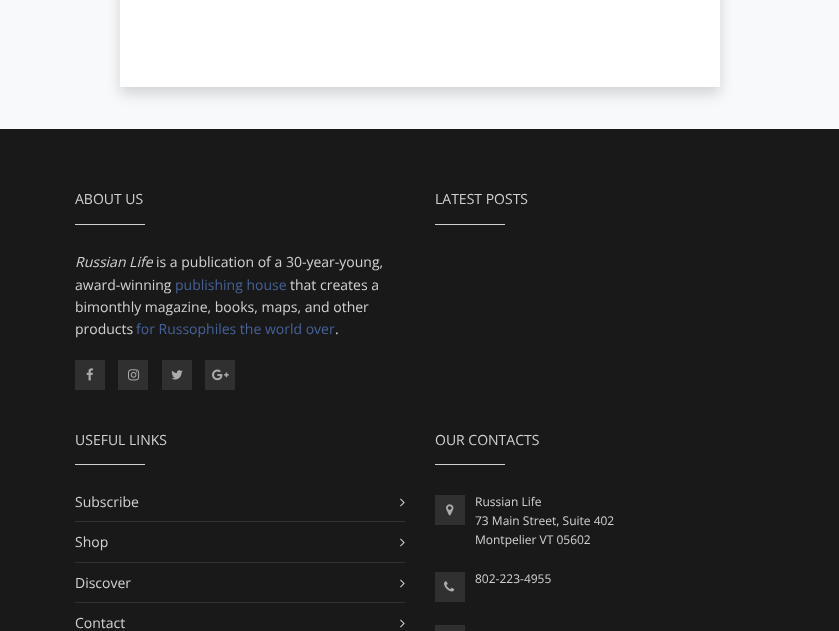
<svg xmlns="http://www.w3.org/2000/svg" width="839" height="631">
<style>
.a{font:14px Open Sans;fill:#d1d1d1}
.b{font:italic 14px Open Sans;fill:#d1d1d1}
.c{font:14px Open Sans;fill:#466299}
.d{font:12px Open Sans;fill:#d1d1d1}
</style>
<rect width="100%" height="100%" fill="#f8f9fa"/>
<path fill="#00000026" filter="blur(7px)" d="M120 -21h600v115H120z"/>
<path fill="#fff" d="M120 0h600v87H120z"/>
<path fill="#191919" d="M0 129h839v502H0z"/>
<path fill="#d1d1d1" d="M75 224h70v1H75z"/>
<path fill="#303030" d="M75 360h30v30H75z"/>
<image href="1.png" x="86" y="368" width="7" height="13"/>
<path fill="#303030" d="M118 360h30v30H118z"/>
<image href="2.png" x="128" y="369" width="12" height="12"/>
<path fill="#303030" d="M162 360h30v30H162z"/>
<image href="3.png" x="171" y="370" width="12" height="10"/>
<path fill="#303030" d="M205 360h30v30H205z"/>
<image href="4.png" x="212" y="369" width="17" height="12"/>
<path fill="#d1d1d1" d="M435 224h70v1H435z"/>
<path fill="#d1d1d1" d="M75 464h70v1H75z"/>
<path fill="#303030" d="M75 521h330v1H75z"/>
<image href="5.png" x="400" y="498" width="5" height="9"/>
<path fill="#303030" d="M75 562h330v1H75z"/>
<image href="5.png" x="400" y="538" width="5" height="9"/>
<path fill="#303030" d="M75 602h330v1H75z"/>
<image href="5.png" x="400" y="579" width="5" height="9"/>
<image href="5.png" x="400" y="619" width="5" height="9"/>
<path fill="#d1d1d1" d="M435 464h70v1H435z"/>
<path fill="#303030" d="M435 495h30v30H435z"/>
<image href="6.png" x="446" y="504" width="8" height="12"/>
<path fill="#303030" d="M435 572h30v30H435z"/>
<image href="7.png" x="444" y="581" width="11" height="11"/>
<path fill="#303030" d="M435 625h30v6H435z"/>
<text class="a" x="75" y="204">ABOUT US</text>
<text class="b" x="75" y="267">Russian Life</text>
<text class="a" x="156" y="267">is a publication of a 30-year-young,</text>
<text class="a" x="75" y="290">award-winning</text>
<text class="c" x="175" y="290">publishing house</text>
<text class="a" x="290" y="290">that creates a</text>
<text class="a" x="75" y="312">bimonthly magazine, books, maps, and other</text>
<text class="a" x="75" y="334">products</text>
<text class="c" x="136" y="334">for Russophiles the world over</text>
<text class="a" x="335" y="334">.</text>
<text class="a" x="435" y="204">LATEST POSTS</text>
<text class="a" x="75" y="445">USEFUL LINKS</text>
<text class="a" x="75" y="507">Subscribe</text>
<text class="a" x="75" y="547">Shop</text>
<text class="a" x="75" y="588">Discover</text>
<text class="a" x="75" y="628">Contact</text>
<text class="a" x="435" y="445">OUR CONTACTS</text>
<text class="d" x="475" y="506">Russian Life</text>
<text class="d" x="475" y="525">73 Main Street, Suite 402</text>
<text class="d" x="475" y="544">Montpelier VT 05602</text>
<text class="d" x="475" y="583">802-223-4955</text>
</svg>
